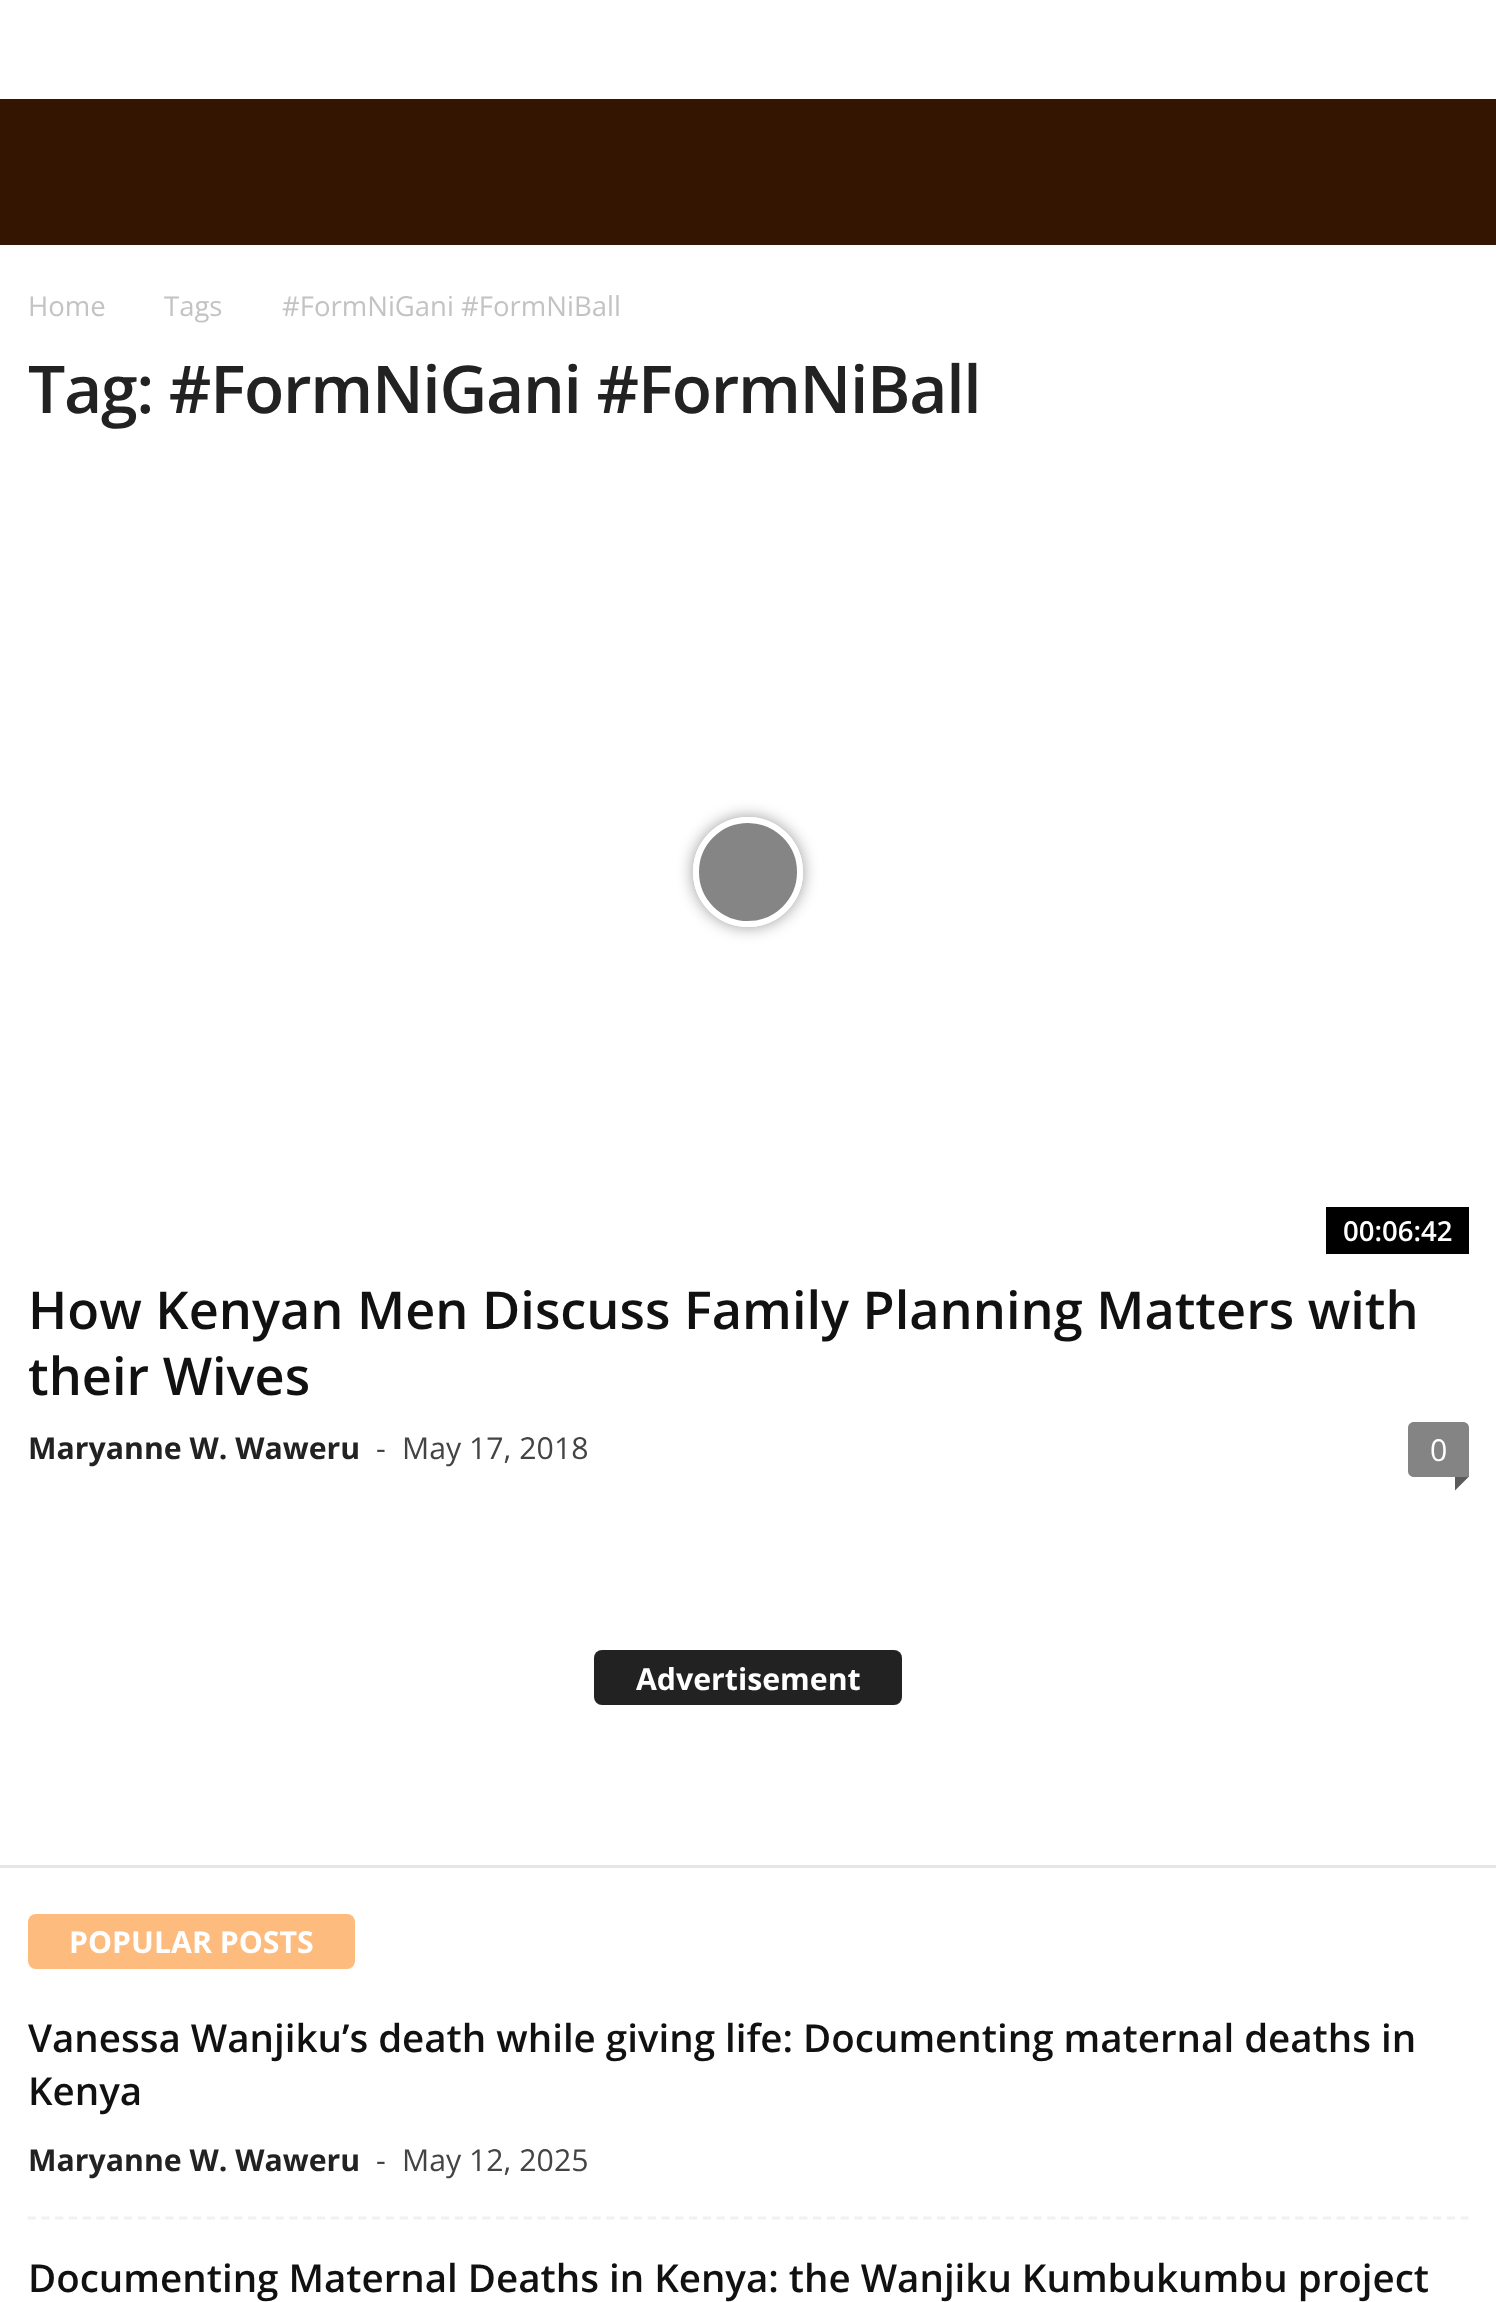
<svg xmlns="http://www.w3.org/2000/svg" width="1496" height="2302">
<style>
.a{font:27.5px Open Sans;fill:#c3c3c3}
.b{font:600 66px Open Sans;letter-spacing:-1.3px;fill:#222}
.c{font:600 27.5px Open Sans;fill:#fff}
.d{font:600 52.25px Open Sans;fill:#111}
.e{font:bold 30.25px Open Sans;fill:#222}
.f{font:30.25px Open Sans;fill:#444}
.g{font:30.25px Open Sans;fill:#fff}
.h{font:bold 30.25px Open Sans;fill:#fff}
.i{font:600 38.5px Open Sans;fill:#111}
</style>
<defs>
<clipPath id="clip1"><path d="M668 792h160v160h-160zm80 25c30.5 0 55 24.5 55 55c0 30.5-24.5 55-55 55c-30.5 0-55-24.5-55-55c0-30.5 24.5-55 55-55z" clip-rule="evenodd"/></clipPath>
</defs>
<rect width="100%" height="100%" fill="#fff"/>
<path fill="#341501" d="M0 99h1496v146H0z"/>
<g clip-path="url(#clip1)">
<rect fill="#00000066" filter="blur(8px)" x="693" y="817" width="110" height="110" rx="55"/>
</g>
<circle fill="#0000007a" stroke="#fff" stroke-width="6" cx="748" cy="872" r="52"/>
<path fill="#000" d="M1326 1207h143v47H1326z"/>
<path fill="#848484" d="M1414 1422h49c3.5 0 6 2.5 6 6v49h-55c-3.5 0-6-2.5-6-6v-43c0-3.5 2.5-6 6-6z"/>
<path fill="#5b5b5b" d="M1455 1477h13.5l-13.5 13.5z"/>
<rect fill="#222" x="594" y="1650" width="308" height="55" rx="8"/>
<path fill="#e6e6e6" d="M0 1865h1496v3H0z"/>
<rect fill="#fdbb7d" x="28" y="1914" width="327" height="55" rx="8"/>
<path fill="none" stroke="#f1f1f1" stroke-width="2.8" stroke-dasharray="8.25 5.53" d="M27.5 2218h1441"/>
<text class="a" x="28" y="316">Home</text>
<text class="a" x="164" y="316">Tags</text>
<text class="a" x="282" y="316">#FormNiGani #FormNiBall</text>
<text class="b" x="28" y="413">Tag: #FormNiGani #FormNiBall</text>
<text class="c" x="1343" y="1241">00:06:42</text>
<text class="d" x="28" y="1329">How Kenyan Men Discuss Family Planning Matters with</text>
<text class="d" x="28" y="1395">their Wives</text>
<text class="e" x="28" y="1459">Maryanne W. Waweru</text>
<text class="f" x="376" y="1459">-</text>
<text class="f" x="402" y="1459">May 17, 2018</text>
<text class="g" x="1430" y="1461">0</text>
<text class="h" x="636" y="1690">Advertisement</text>
<text class="h" x="69" y="1953">POPULAR POSTS</text>
<text class="i" x="28" y="2052">Vanessa Wanjiku’s death while giving life: Documenting maternal deaths in</text>
<text class="i" x="28" y="2105">Kenya</text>
<text class="e" x="28" y="2171">Maryanne W. Waweru</text>
<text class="f" x="376" y="2171">-</text>
<text class="f" x="402" y="2171">May 12, 2025</text>
<text class="i" x="28" y="2292">Documenting Maternal Deaths in Kenya: the Wanjiku Kumbukumbu project</text>
</svg>
